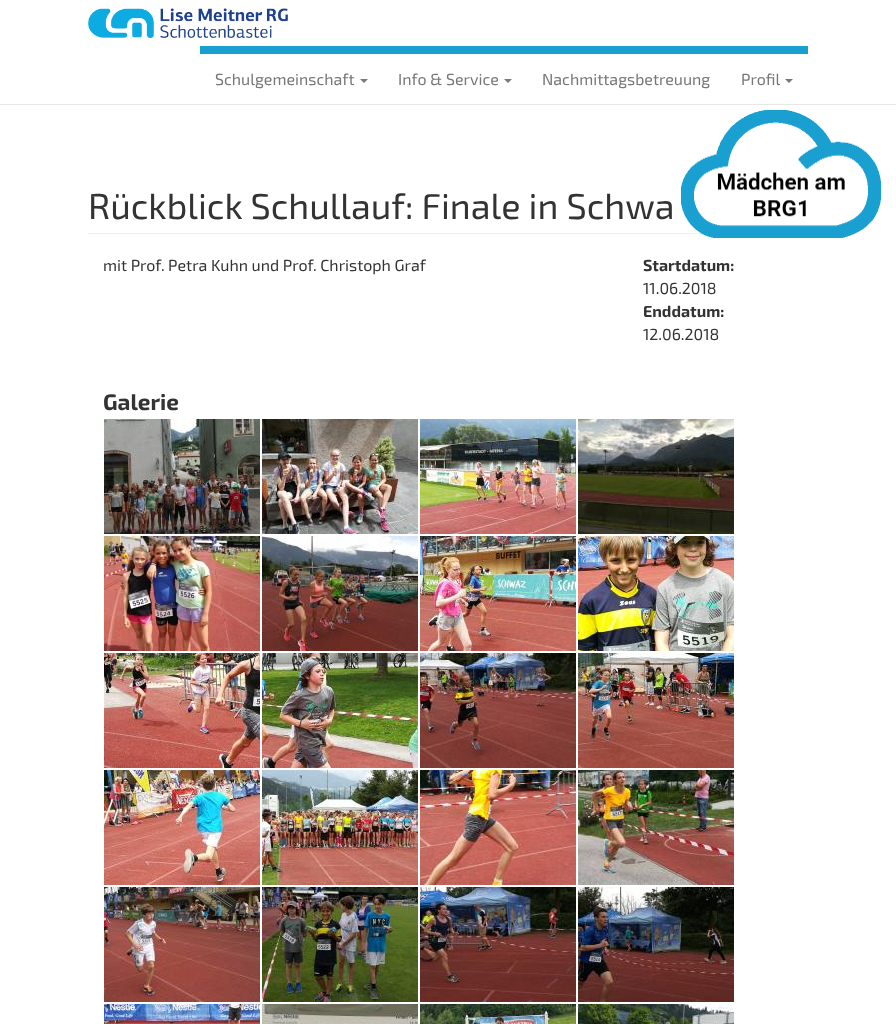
<svg xmlns="http://www.w3.org/2000/svg" width="896" height="1024">
<style>
.a{font:16px 'Exo 2';fill:#777}
.b{font:36px 'Exo 2';fill:#333}
.c{font:16px 'Exo 2';fill:#333}
.d{font:bold 16px 'Exo 2';fill:#333}
.e{font:bold 22.5px 'Exo 2';fill:#333}
</style>
<rect width="100%" height="100%" fill="#fff"/>
<path fill="#e7e7e7" d="M0 104h896v1H0z"/>
<image href="1.png" x="88" y="8" width="200" height="30"/>
<path fill="#1a9fd1" d="M200 46h608v8H200z"/>
<path fill="#777" d="M360 79h8l-4 4z"/>
<path fill="#777" d="M504 79h8l-4 4z"/>
<path fill="#777" d="M785 79h8l-4 4z"/>
<path fill="#eee" d="M88 233h614v1H88z"/>
<image href="2.png" x="681" y="110" width="200" height="128"/>
<image href="3.png" x="104" y="419" width="156" height="115"/>
<image href="4.png" x="262" y="419" width="156" height="115"/>
<image href="5.png" x="420" y="419" width="156" height="115"/>
<image href="6.png" x="578" y="419" width="156" height="115"/>
<image href="7.png" x="104" y="536" width="156" height="115"/>
<image href="8.png" x="262" y="536" width="156" height="115"/>
<image href="9.png" x="420" y="536" width="156" height="115"/>
<image href="10.png" x="578" y="536" width="156" height="115"/>
<image href="11.png" x="104" y="653" width="156" height="115"/>
<image href="12.png" x="262" y="653" width="156" height="115"/>
<image href="13.png" x="420" y="653" width="156" height="115"/>
<image href="14.png" x="578" y="653" width="156" height="115"/>
<image href="15.png" x="104" y="770" width="156" height="115"/>
<image href="16.png" x="262" y="770" width="156" height="115"/>
<image href="17.png" x="420" y="770" width="156" height="115"/>
<image href="18.png" x="578" y="770" width="156" height="115"/>
<image href="19.png" x="104" y="887" width="156" height="115"/>
<image href="20.png" x="262" y="887" width="156" height="115"/>
<image href="21.png" x="420" y="887" width="156" height="115"/>
<image href="22.png" x="578" y="887" width="156" height="115"/>
<image href="23.png" x="104" y="1004" width="156" height="20"/>
<image href="24.png" x="262" y="1004" width="156" height="20"/>
<image href="25.png" x="420" y="1004" width="156" height="20"/>
<image href="26.png" x="578" y="1004" width="156" height="20"/>
<text class="a" x="215" y="85">Schulgemeinschaft</text>
<text class="a" x="398" y="85">Info &amp; Service</text>
<text class="a" x="542" y="85">Nachmittagsbetreuung</text>
<text class="a" x="741" y="85">Profil</text>
<text class="b" x="88" y="219">Rückblick Schullauf: Finale in Schwa</text>
<text class="c" x="103" y="271">mit Prof. Petra Kuhn und Prof. Christoph Graf</text>
<text class="d" x="643" y="271">Startdatum:</text>
<text class="c" x="643" y="294">11.06.2018</text>
<text class="d" x="643" y="317">Enddatum:</text>
<text class="c" x="643" y="340">12.06.2018</text>
<text class="e" x="103" y="410">Galerie</text>
</svg>
